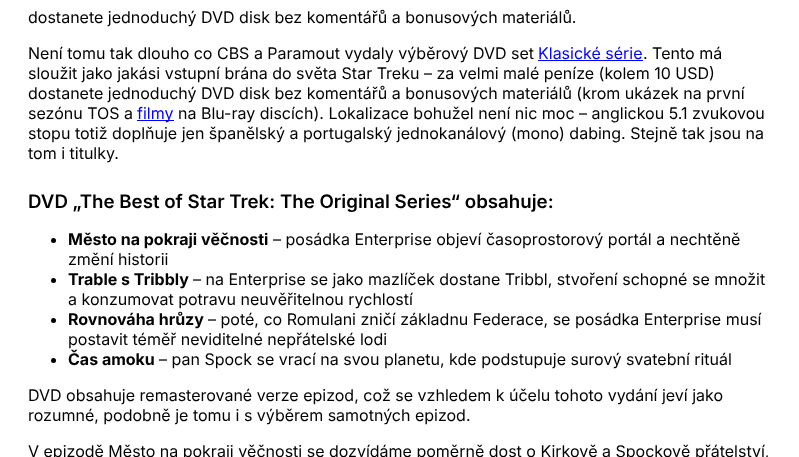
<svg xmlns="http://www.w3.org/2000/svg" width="799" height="457">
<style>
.a{font:16px Inter;fill:#000}
.b{font:16px Inter;fill:#00f}
.c{font:600 18.7px Inter;fill:#000}
.d{font:bold 16px Inter;fill:#000}
</style>
<rect width="100%" height="100%" fill="#fff"/>
<path fill="#00f" d="M538 60h105v1H538z"/>
<path fill="#00f" d="M137 120h37v1H137z"/>
<circle fill="#000" cx="53.5" cy="240.5" r="2.5"/>
<circle fill="#000" cx="53.5" cy="280.5" r="2.5"/>
<circle fill="#000" cx="53.5" cy="320.5" r="2.5"/>
<circle fill="#000" cx="53.5" cy="360.5" r="2.5"/>
<text class="a" x="28" y="23">dostanete jednoduchý DVD disk bez komentářů a bonusových materiálů.</text>
<text class="a" x="28" y="59">Není tomu tak dlouho co CBS a Paramout vydaly výběrový DVD set</text>
<text class="b" x="538" y="59">Klasické série</text>
<text class="a" x="643" y="59">. Tento má</text>
<text class="a" x="28" y="79">sloužit jako jakási vstupní brána do světa Star Treku – za velmi malé peníze (kolem 10 USD)</text>
<text class="a" x="28" y="99">dostanete jednoduchý DVD disk bez komentářů a bonusových materiálů (krom ukázek na první</text>
<text class="a" x="28" y="119">sezónu TOS a</text>
<text class="b" x="137" y="119">filmy</text>
<text class="a" x="178" y="119">na Blu-ray discích). Lokalizace bohužel není nic moc – anglickou 5.1 zvukovou</text>
<text class="a" x="28" y="139">stopu totiž doplňuje jen španělský a portugalský jednokanálový (mono) dabing. Stejně tak jsou na</text>
<text class="a" x="28" y="159">tom i titulky.</text>
<text class="c" x="28" y="208">DVD „The Best of Star Trek: The Original Series“ obsahuje:</text>
<text class="d" x="68" y="245">Město na pokraji věčnosti</text>
<text class="a" x="273" y="245">– posádka Enterprise objeví časoprostorový portál a nechtěně</text>
<text class="a" x="68" y="265">změní historii</text>
<text class="d" x="68" y="285">Trable s Tribbly</text>
<text class="a" x="193" y="285">– na Enterprise se jako mazlíček dostane Tribbl, stvoření schopné se množit</text>
<text class="a" x="68" y="305">a konzumovat potravu neuvěřitelnou rychlostí</text>
<text class="d" x="68" y="325">Rovnováha hrůzy</text>
<text class="a" x="208" y="325">– poté, co Romulani zničí základnu Federace, se posádka Enterprise musí</text>
<text class="a" x="68" y="345">postavit téměř neviditelné nepřátelské lodi</text>
<text class="d" x="68" y="365">Čas amoku</text>
<text class="a" x="159" y="365">– pan Spock se vrací na svou planetu, kde podstupuje surový svatební rituál</text>
<text class="a" x="28" y="401">DVD obsahuje remasterované verze epizod, což se vzhledem k účelu tohoto vydání jeví jako</text>
<text class="a" x="28" y="421">rozumné, podobně je tomu i s výběrem samotných epizod.</text>
<text class="a" x="28" y="457">V epizodě Město na pokraji věčnosti se dozvídáme poměrně dost o Kirkově a Spockově přátelství,</text>
</svg>
